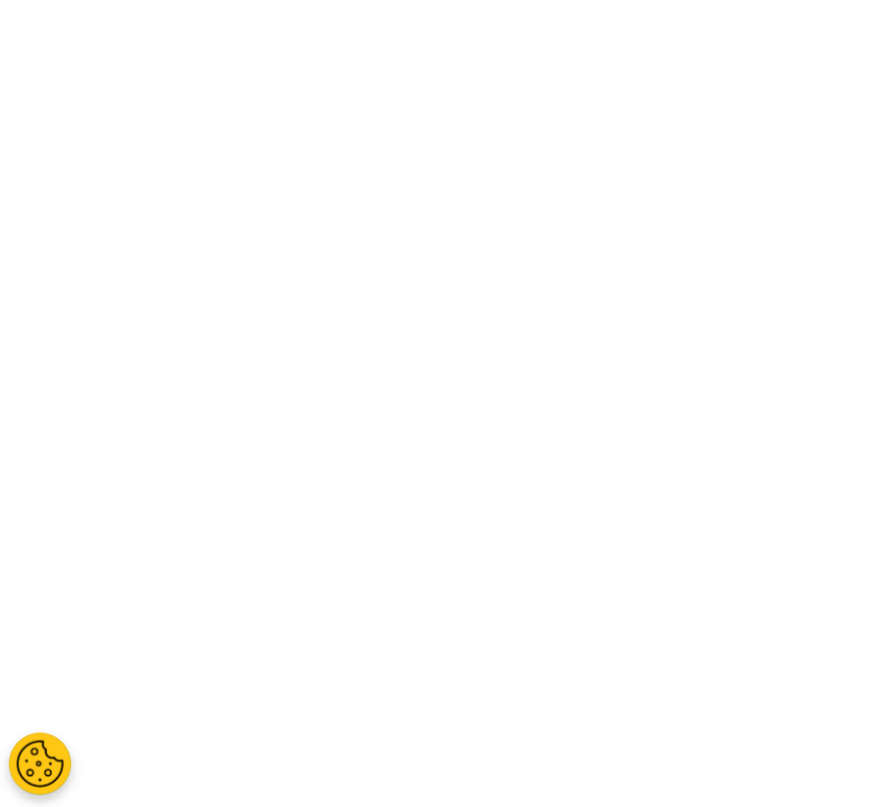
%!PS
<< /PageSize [885 807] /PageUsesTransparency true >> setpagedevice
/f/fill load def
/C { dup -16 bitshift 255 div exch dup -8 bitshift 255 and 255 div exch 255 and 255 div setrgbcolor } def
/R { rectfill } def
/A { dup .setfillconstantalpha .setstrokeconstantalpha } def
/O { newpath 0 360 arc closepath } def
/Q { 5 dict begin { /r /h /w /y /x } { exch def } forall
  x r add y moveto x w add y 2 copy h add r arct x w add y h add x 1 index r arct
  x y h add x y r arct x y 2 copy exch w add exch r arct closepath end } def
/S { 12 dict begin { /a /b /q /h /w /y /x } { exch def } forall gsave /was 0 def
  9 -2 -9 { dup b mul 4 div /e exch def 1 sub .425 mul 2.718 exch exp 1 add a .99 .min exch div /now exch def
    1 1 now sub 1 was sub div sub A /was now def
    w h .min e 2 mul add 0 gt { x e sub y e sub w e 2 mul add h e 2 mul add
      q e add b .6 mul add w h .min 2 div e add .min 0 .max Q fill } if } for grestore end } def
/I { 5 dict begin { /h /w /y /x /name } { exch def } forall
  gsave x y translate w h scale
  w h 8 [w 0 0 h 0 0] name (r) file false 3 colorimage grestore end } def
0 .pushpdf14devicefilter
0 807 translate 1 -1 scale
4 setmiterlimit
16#FFFFFF C
0 0 885 807 R
16#000000 C
9 738 62 62 31 5 .2 S
16#6AAAE4 C
40 764 31 O f
(1.rgb) 8 732 64 64 I
.poppdf14devicefilter showpage
